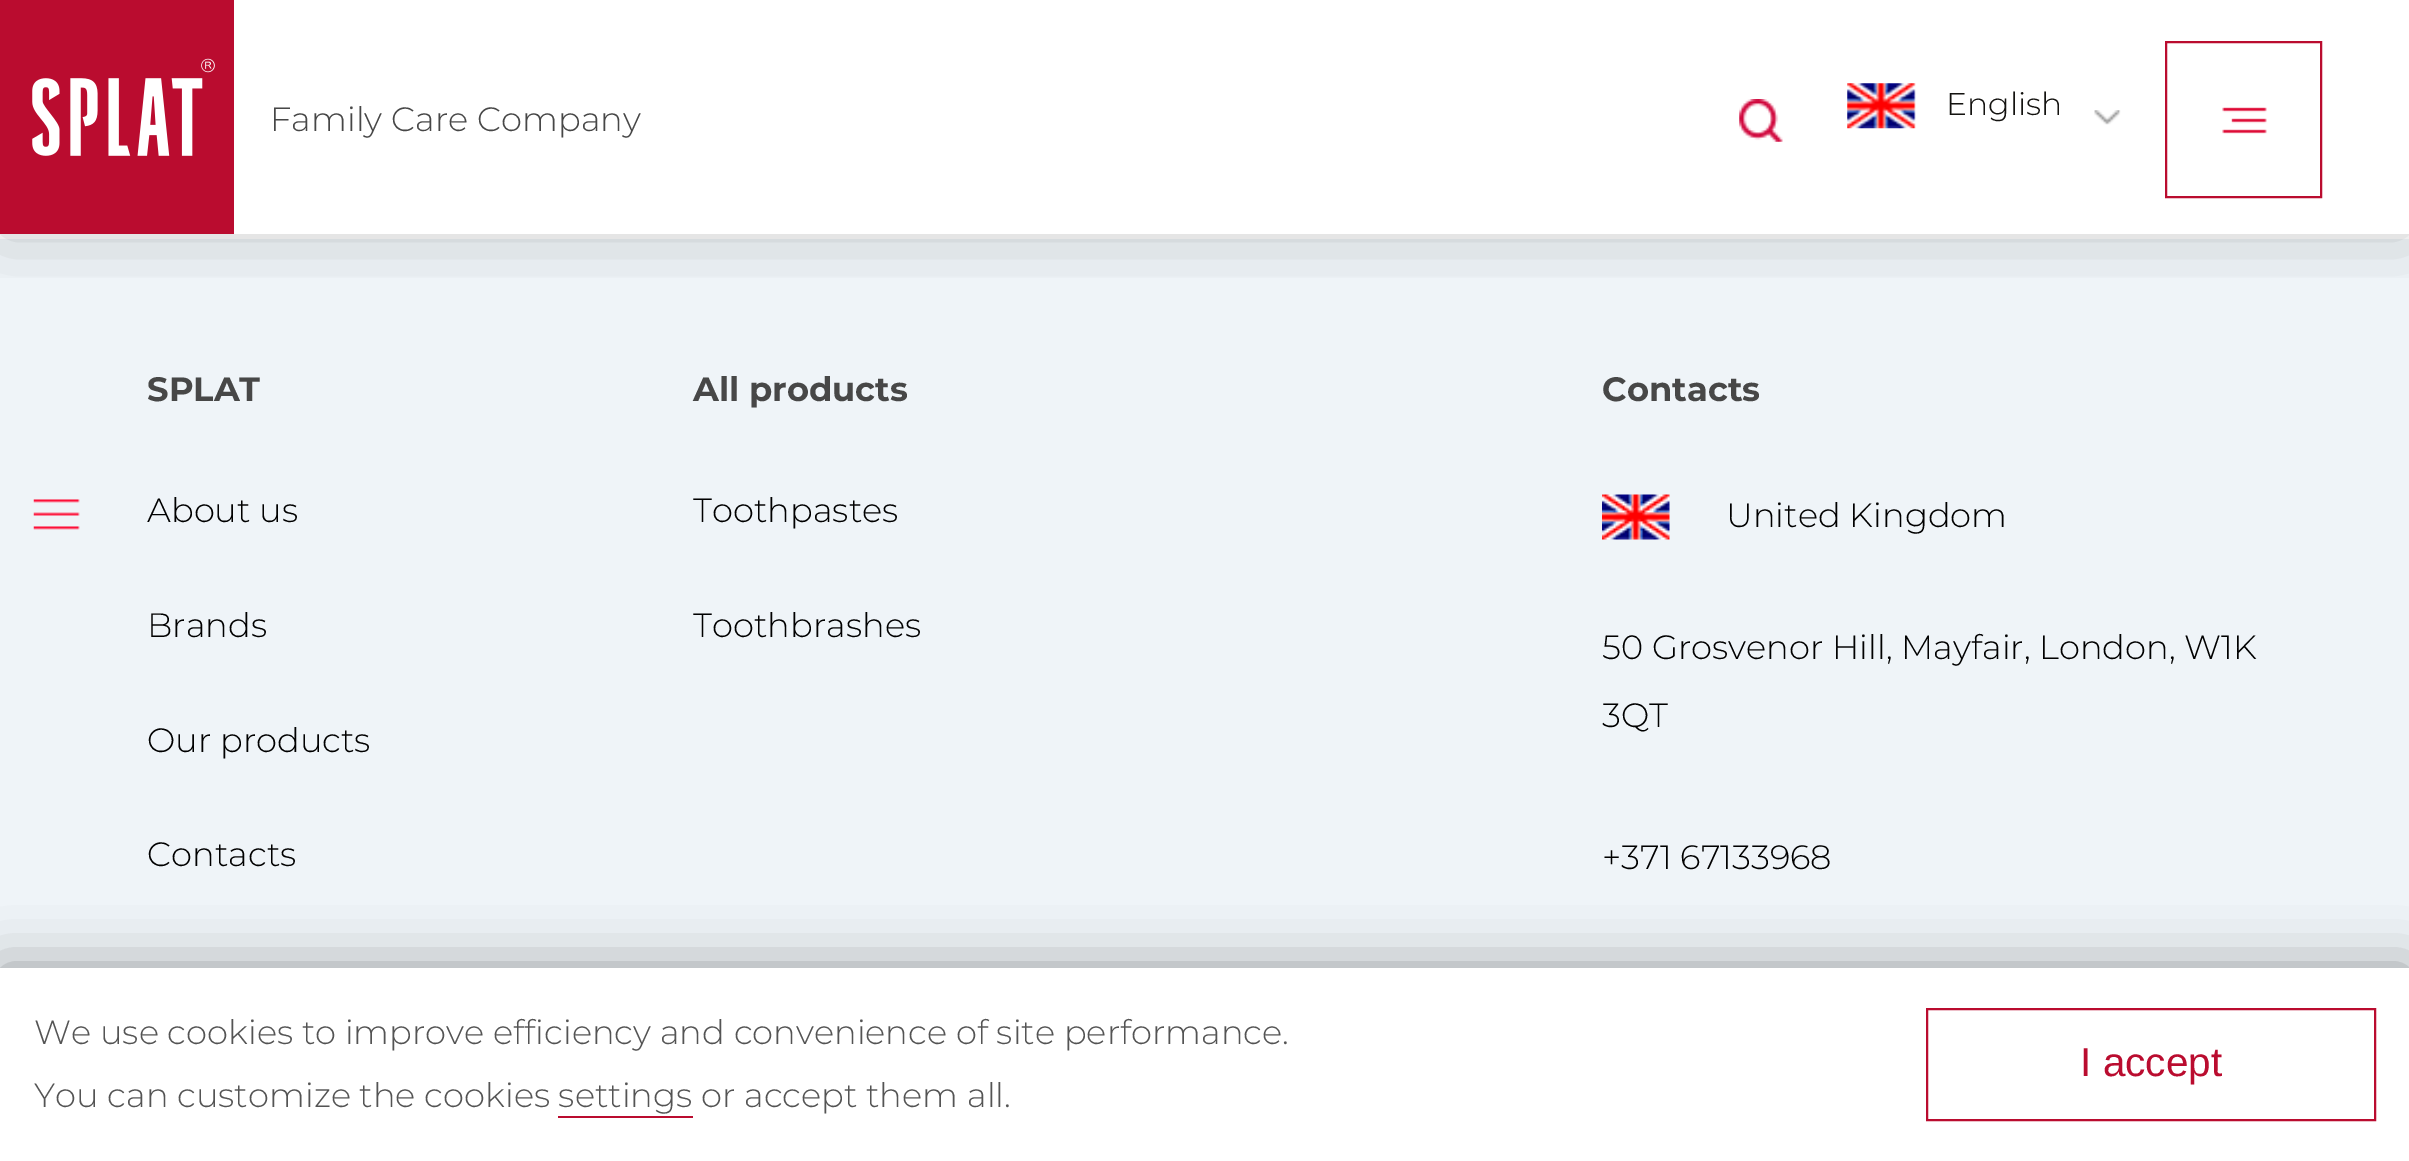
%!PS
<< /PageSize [2409 1161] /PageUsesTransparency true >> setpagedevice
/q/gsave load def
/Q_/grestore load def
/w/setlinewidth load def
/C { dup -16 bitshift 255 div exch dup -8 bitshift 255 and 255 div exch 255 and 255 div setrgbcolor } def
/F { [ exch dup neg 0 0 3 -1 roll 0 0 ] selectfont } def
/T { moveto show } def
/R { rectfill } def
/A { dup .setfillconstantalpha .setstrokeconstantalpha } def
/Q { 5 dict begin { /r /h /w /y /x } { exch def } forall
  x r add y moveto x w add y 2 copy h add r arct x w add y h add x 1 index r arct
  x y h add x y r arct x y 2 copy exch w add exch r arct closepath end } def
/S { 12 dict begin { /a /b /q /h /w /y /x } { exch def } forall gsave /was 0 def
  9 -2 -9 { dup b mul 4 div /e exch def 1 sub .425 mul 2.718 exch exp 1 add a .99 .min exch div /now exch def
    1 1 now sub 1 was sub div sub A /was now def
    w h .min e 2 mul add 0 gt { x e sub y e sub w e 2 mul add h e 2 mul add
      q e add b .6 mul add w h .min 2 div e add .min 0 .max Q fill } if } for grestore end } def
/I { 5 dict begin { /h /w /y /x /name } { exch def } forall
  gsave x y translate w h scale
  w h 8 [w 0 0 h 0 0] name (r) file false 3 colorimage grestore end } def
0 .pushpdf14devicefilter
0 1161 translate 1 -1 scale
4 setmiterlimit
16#FFFFFF C
0 0 2409 1161 R
16#EFF4F8 C
0 239 2409 729 R
q
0 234 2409 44 rectclip
16#000000 C
0 0 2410 234 0 34 .2 S
Q_
(1.rgb) 0 0 234 234 I
/Montserrat-Light 33.75 F
16#474747 C
(Family Care Company) 270 131 T
(2.rgb) 1739 99 44 43 I
(3.rgb) 1847 83 69 46 I
/Montserrat-Light 31.5 F
16#141310 C
(English) 1946 115 T
(4.rgb) 2094 110 27 15 I
(5.rgb) 2222 107 45 27 I
16#BA0C2F C
2 w
2166 42 155 155 rectstroke
(6.rgb) 33 499 47 31 I
/Montserrat-Bold 33.75 F
16#474747 C
(SPLAT) 147 401 T
/Montserrat-Light 33.75 F
16#000000 C
(About us) 147 522 T
(Brands) 147 637 T
(Our products) 147 752 T
(Contacts) 147 866 T
/Montserrat-Bold 33.75 F
16#474747 C
(All products) 693 401 T
/Montserrat-Light 33.75 F
16#000000 C
(Toothpastes) 693 522 T
(Toothbrashes) 693 637 T
/Montserrat-Bold 33.75 F
16#474747 C
(Contacts) 1602 401 T
(7.rgb) 1602 494 68 46 I
/Montserrat-Light 33.75 F
16#000000 C
(United Kingdom) 1726 527 T
(50 Grosvenor Hill, Mayfair, London, W1K) 1602 659 T
(3QT) 1602 727 T
(+371 67133968) 1602 869 T
0 968 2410 193 0 28 .36 S
16#FFFFFF C
0 968 2409 193 R
16#545454 C
(We use cookies to improve efficiency and convenience of site performance.) 34 1044 T
(You can customize the cookies settings or accept them all.) 34 1107 T
16#BA0C2F C
558 1116 135 2 R
1927 1009 448 111 rectstroke
/LiberationSans-Regular 40.5 F
(I accept) 2080 1076 T
.poppdf14devicefilter showpage
